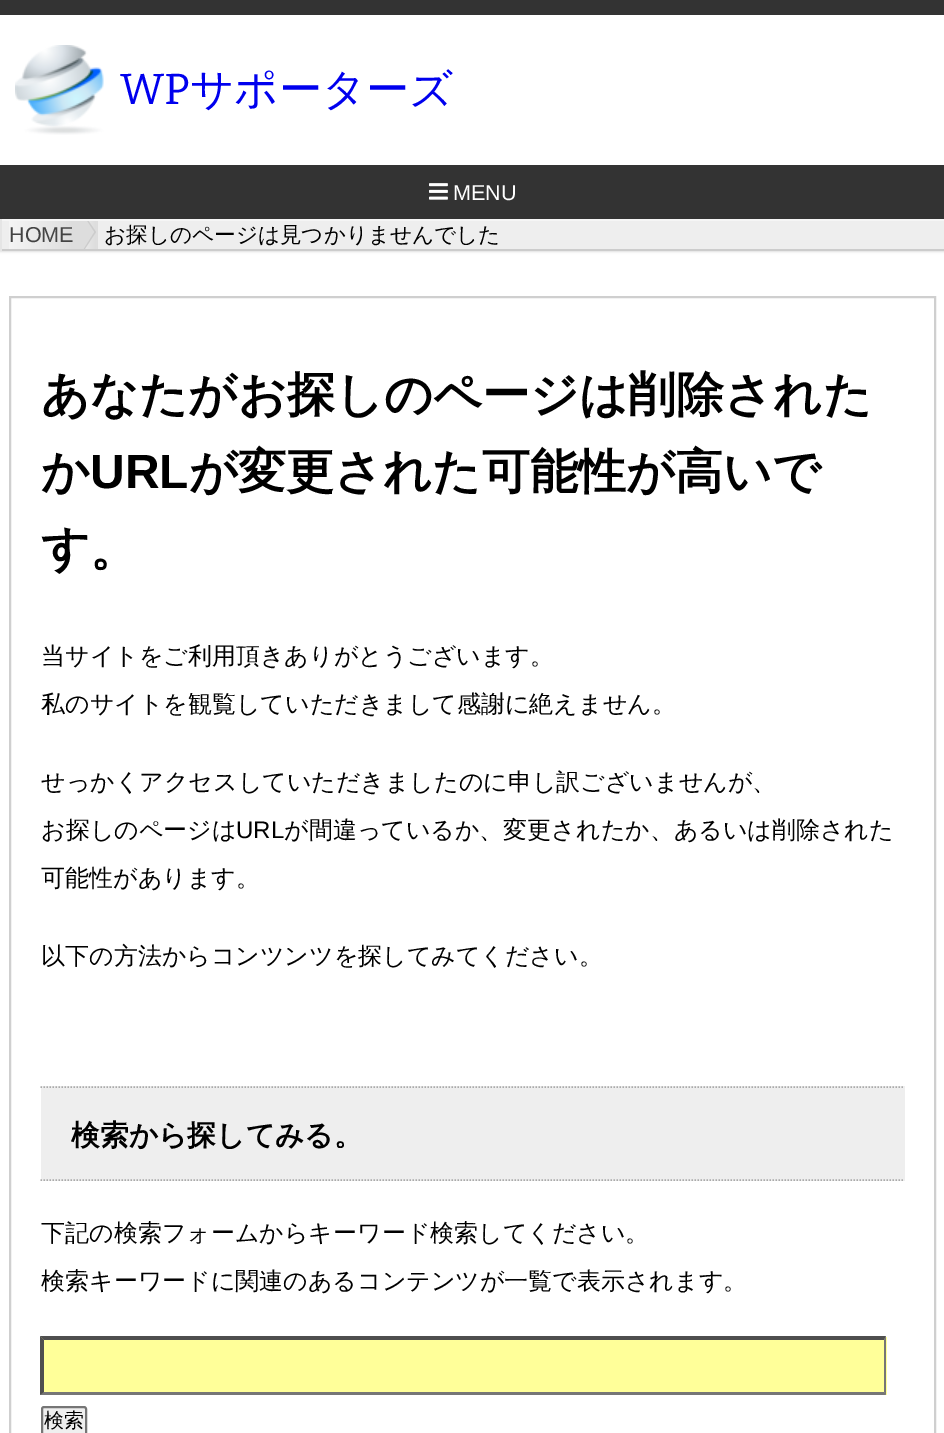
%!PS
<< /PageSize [944 1433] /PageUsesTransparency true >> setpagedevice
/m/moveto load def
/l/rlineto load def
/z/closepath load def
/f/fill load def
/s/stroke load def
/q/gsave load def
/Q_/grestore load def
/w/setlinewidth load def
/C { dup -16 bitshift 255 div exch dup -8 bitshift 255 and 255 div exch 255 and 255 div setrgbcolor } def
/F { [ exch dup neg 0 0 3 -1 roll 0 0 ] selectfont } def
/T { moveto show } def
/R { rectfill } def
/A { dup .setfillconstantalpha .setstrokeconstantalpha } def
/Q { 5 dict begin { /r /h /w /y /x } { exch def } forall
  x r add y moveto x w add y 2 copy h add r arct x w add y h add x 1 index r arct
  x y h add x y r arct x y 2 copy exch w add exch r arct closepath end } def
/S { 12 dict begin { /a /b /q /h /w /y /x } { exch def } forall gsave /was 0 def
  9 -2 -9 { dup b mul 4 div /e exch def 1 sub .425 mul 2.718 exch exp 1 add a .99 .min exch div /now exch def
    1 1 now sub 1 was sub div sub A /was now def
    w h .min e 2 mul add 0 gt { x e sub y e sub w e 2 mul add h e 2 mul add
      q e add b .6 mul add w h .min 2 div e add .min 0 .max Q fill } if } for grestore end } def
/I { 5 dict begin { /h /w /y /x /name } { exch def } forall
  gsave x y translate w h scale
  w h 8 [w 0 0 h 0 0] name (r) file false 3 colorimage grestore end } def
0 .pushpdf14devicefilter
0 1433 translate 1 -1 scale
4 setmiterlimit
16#FFFFFF C
0 0 944 1433 R
16#333333 C
0 0 944 15 R
(1.rgb) 15 45 89 90 I
/Bitter-Regular 43.25 F
16#0000EE C
(WP) 120 104 T
/WenQuanYiZenHei-Medium 43.25 F
(サポーターズ) 190 104 T
16#000000 C
0 219 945 32 0 1.5 .2 S
16#333333 C
0 165 944 54 R
(2.rgb) 429 183 19 17 I
/LiberationSans-Regular 21.6 F
16#FFFFFF C
(MENU) 453 200 T
16#EEEEEE C
2 221 942 28 R
16#F5F5F5 C
0 219 944 2 R
16#CCCCCC C
0 249 944 2 R
16#E5E5E5 C
0 219 2 32 R
q 96 221 m 2 0 l 0 28 l -2 0 l z clip newpath
<< /ShadingType 2 /ColorSpace /DeviceRGB /Coords [68 233 98 233] /Extend [true true] /Function << /FunctionType 2 /Domain [0 1] /C0 [.961 .961 .961] /C1 [.867 .867 .867] /N 1 >> >> shfill Q_
q 9 221 m 65 0 l 0 28 l -65 0 l z clip newpath
<< /ShadingType 2 /ColorSpace /DeviceRGB /Coords [9 234 74 234] /Extend [true true] /Function << /FunctionType 2 /Domain [0 1] /C0 [.961 .961 .961] /C1 [.867 .867 .867] /N 1 >> >> shfill Q_
q 84 221 m 12 0 l 0 28 l -12 0 l z clip newpath
<< /ShadingType 2 /ColorSpace /DeviceRGB /Coords [74 233 96 233] /Extend [true true] /Function << /FunctionType 2 /Domain [0 1] /C0 [.961 .961 .961] /C1 [.867 .867 .867] /N 1 >> >> shfill Q_
q
2 221 498 28 rectclip
16#CCCCCC C
75 264 m 0 -63 l 21 31 l z f
16#DDDDDD C
74 264 m 0 -63 l 20 31 l z f
Q_
16#444444 C
(HOME) 9 242 T
/WenQuanYiZenHei-Medium 21.6 F
16#000000 C
(お探しのページは見つかりませんでした) 104 242 T
16#CFCFCF C
2 w
10 297 925 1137 rectstroke
/WenQuanYiZenHei-Bold 48 F
16#000000 C
(あなたがお探しのページは削除された) 41 411 T
(か) 41 488 T
/LiberationSans-Bold 48 F
(URL) 90 488 T
/WenQuanYiZenHei-Bold 48 F
(が変更された可能性が高いで) 189 488 T
(す。) 41 565 T
/WenQuanYiZenHei-Medium 24 F
(当サイトをご利用頂きありがとうございます。) 41 664 T
(私のサイトを観覧していただきまして感謝に絶えません。) 41 712 T
(せっかくアクセスしていただきましたのに申し訳ございませんが、) 41 790 T
(お探しのページは) 41 838 T
/LiberationSans-Regular 24 F
(URL) 236 838 T
/WenQuanYiZenHei-Medium 24 F
(が間違っているか、変更されたか、あるいは削除された) 284 838 T
(可能性があります。) 41 886 T
(以下の方法からコンツンツを探してみてください。) 41 964 T
16#EEEEEE C
41 1086 864 95 R
16#AAAAAA C
1.5 w
[1.5 1.5] 0 setdash
40.5 1087 m 864 0 l s
40.5 1180 m 864 0 l s
/WenQuanYiZenHei-Bold 28.75 F
16#000000 C
(検索から探してみる。) 71 1145 T
/WenQuanYiZenHei-Medium 24 F
(下記の検索フォームからキーワード検索してください。) 41 1241 T
(検索キーワードに関連のあるコンテンツが一覧で表示されます。) 41 1289 T
16#FFFF99 C
41 1337 846 58 R
16#4F4F4F C
40 1336 m 846 0 l -2 4 l -840 0 l z f
16#767676 C
886 1336 m 0 59 l -2 -3 l 0 -52 l z f
886 1395 m -846 0 l 4 -3 l 840 0 l z f
16#4F4F4F C
40 1395 m 0 -59 l 4 4 l 0 52 l z f
16#EFEFEF C
42 1407 44 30 2 Q q f Q_
16#767676 C
2 w
[] 0 setdash
s
/WenQuanYiZenHei-Medium 20 F
16#000000 C
(検索) 44 1427 T
.poppdf14devicefilter showpage
